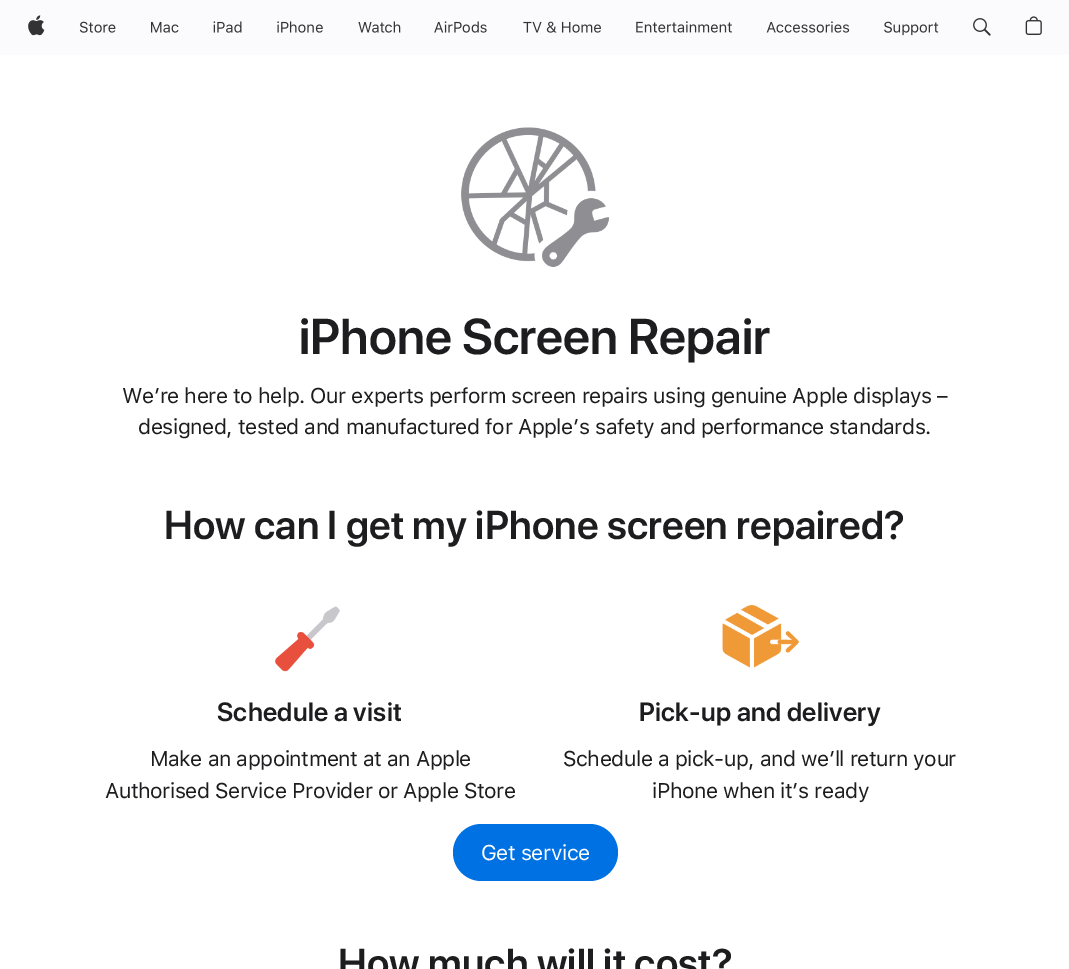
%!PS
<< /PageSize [1069 969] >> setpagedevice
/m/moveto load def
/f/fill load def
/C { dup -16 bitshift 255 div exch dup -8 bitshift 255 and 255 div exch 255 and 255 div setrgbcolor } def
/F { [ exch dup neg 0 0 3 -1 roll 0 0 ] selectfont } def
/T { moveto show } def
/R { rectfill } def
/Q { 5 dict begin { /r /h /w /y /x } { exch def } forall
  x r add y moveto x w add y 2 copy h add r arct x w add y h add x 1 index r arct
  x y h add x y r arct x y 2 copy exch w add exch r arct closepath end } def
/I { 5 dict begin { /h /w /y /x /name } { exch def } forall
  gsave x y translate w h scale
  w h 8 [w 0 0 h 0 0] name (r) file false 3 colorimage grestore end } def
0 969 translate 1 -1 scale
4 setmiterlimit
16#FFFFFF C
0 0 1069 969 R
16#FBFBFD C
0 0 1069 55 R
(1.rgb) 28 15 17 21 I
(2.rgb) 79 21 37 12 I
(3.rgb) 151 21 28 12 I
(4.rgb) 213 21 29 12 I
(5.rgb) 277 21 46 12 I
(6.rgb) 358 21 43 12 I
(7.rgb) 434 21 53 12 I
(8.rgb) 523 21 78 12 I
(9.rgb) 636 21 96 12 I
(10.rgb) 766 21 84 12 I
(11.rgb) 884 21 55 15 I
(12.rgb) 973 18 18 18 I
(13.rgb) 1025 16 17 19 I
(14.rgb) 461 127 148 140 I
/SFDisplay-SemiBold 50 F
16#1D1D1F C
(iPhone Screen Repair) 299 354 T
/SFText-Regular 21.25 F
122 403 m -.47 0 (We’re here to help. Our experts perform screen repairs using genuine Apple displays –) ashow
138 434 m -.47 0 (designed, tested and manufactured for Apple’s safety and performance standards.) ashow
/SFDisplay-SemiBold 40 F
164 539 m .15 0 (How can I get my iPhone screen repaired?) ashow
(15.rgb) 275 606 65 66 I
/SFDisplay-SemiBold 26.25 F
217 721 m .25 0 (Schedule a visit) ashow
/SFText-Regular 21.25 F
150 766 m -.47 0 (Make an appointment at an Apple) ashow
105 798 m -.47 0 (Authorised Service Provider or Apple Store) ashow
(16.rgb) 722 605 77 63 I
/SFDisplay-SemiBold 26.25 F
639 721 m .25 0 (Pick-up and delivery) ashow
/SFText-Regular 21.25 F
563 766 m -.47 0 (Schedule a pick-up, and we’ll return your) ashow
652 798 m -.47 0 (iPhone when it’s ready) ashow
16#0071E3 C
453 824 165 57 28.5 Q f
16#FFFFFF C
481 860 m -.47 0 (Get service) ashow
/SFDisplay-SemiBold 40 F
16#1D1D1F C
338 977 m .15 0 (How much will it cost?) ashow
showpage
